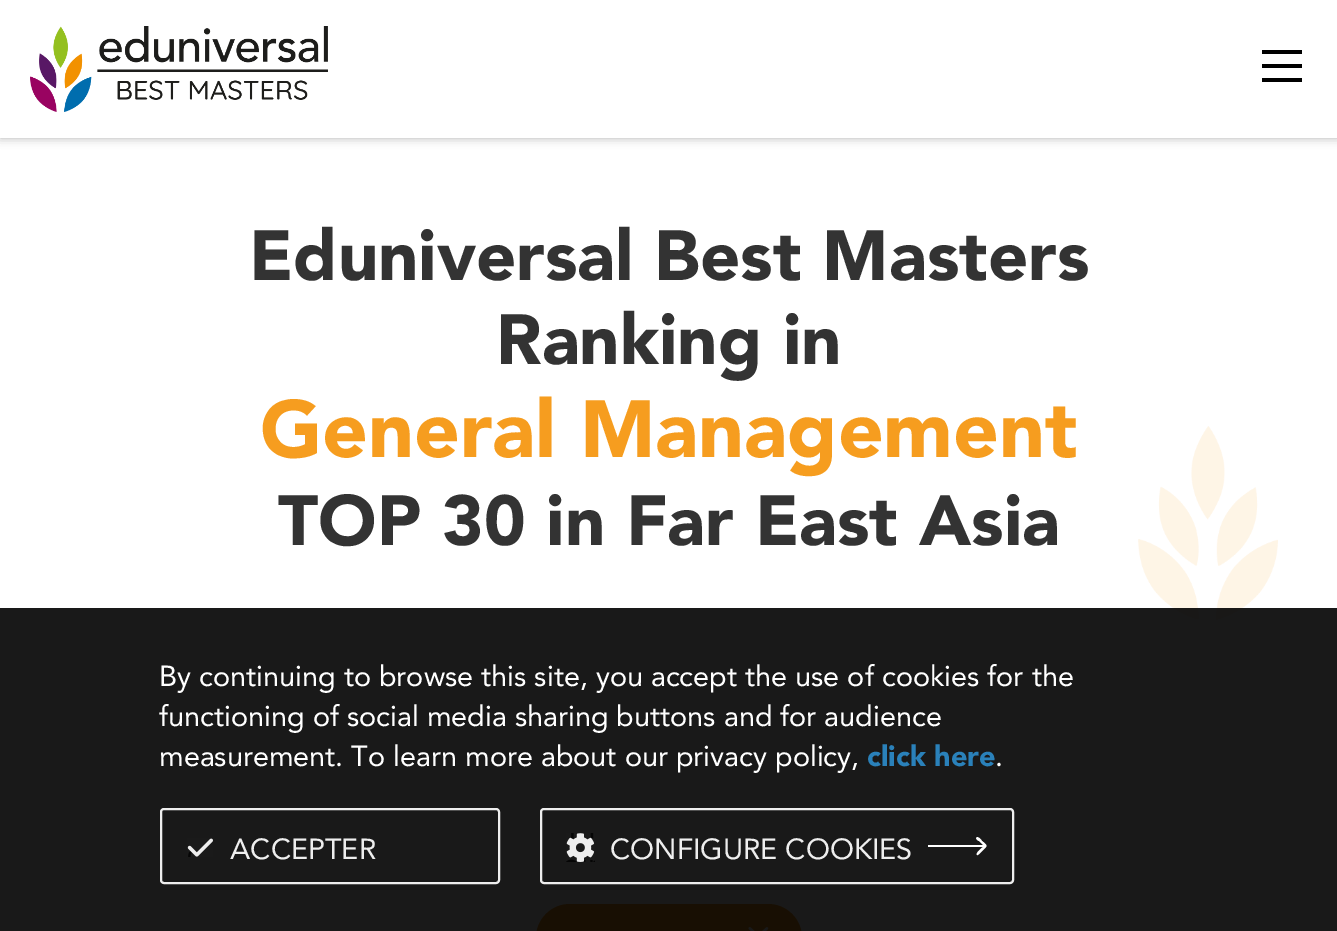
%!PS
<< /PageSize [1337 931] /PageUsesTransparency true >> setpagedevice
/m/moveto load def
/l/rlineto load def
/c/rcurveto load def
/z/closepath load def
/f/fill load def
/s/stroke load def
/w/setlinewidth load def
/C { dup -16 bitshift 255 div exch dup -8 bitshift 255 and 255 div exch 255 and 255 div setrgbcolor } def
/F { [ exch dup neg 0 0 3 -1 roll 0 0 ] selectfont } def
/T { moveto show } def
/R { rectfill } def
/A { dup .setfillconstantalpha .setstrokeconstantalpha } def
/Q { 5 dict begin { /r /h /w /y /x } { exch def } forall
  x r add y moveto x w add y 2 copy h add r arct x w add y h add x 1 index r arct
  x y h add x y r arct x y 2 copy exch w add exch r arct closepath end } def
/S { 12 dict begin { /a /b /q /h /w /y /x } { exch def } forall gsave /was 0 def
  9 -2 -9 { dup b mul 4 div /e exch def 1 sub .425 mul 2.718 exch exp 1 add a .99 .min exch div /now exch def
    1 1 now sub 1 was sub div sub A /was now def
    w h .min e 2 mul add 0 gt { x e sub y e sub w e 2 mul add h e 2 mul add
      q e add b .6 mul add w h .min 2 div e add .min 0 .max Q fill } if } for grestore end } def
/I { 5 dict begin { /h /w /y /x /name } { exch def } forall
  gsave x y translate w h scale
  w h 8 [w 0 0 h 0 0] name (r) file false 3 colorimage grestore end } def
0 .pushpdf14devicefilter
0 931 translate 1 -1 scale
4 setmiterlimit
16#FFFFFF C
0 0 1337 931 R
16#000000 C
0 0 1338 138 0 5 .3 S
16#FFFFFF C
0 0 1337 138 R
(1.rgb) 30 26 298 86 I
16#000000 C
1262 64 40 4 R
1262 50 40 4 R
1262 78 40 4 R
(2.rgb) 1138 426 140 194 I
/Avenir-Black 70.4 F
16#333333 C
(Eduniversal Best Masters) 249 280 T
(Ranking in) 496 364 T
/Avenir-Black 80 F
16#F69D1F C
(General Management) 260 457 T
/Avenir-Black 70.4 F
16#333333 C
(TOP 30 in Far East Asia) 278 545 T
16#F69D1F C
536 904 266 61 34 Q f
(3.rgb) 748 927 21 4 I
0.9 A
16#000000 C
0 608 1337 323 R
/Avenir-Regular 28.8 F
1 A
16#FFFFFF C
(By continuing to browse this site, you accept the use of cookies for the) 159 686 T
(functioning of social media sharing buttons and for audience) 159 726 T
(measurement. To learn more about our privacy policy,) 159 766 T
/Avenir-Black 28.8 F
16#2A81BA C
(click here) 867 766 T
/Avenir-Regular 28.8 F
16#FFFFFF C
(.) 995 766 T
16#EEEEEE C
2 w
161 809 338 74 3 Q s
(4.rgb) 187 838 26 19 I
(ACCEPTER) 230 859 T
541 809 472 74 3 Q s
(5.rgb) 566 833 29 29 I
(CONFIGURE COOKIES) 610 859 T
16#FFFFFF C
986 847 m 2 -2 -3 -5 -4 -6 c 0 0 -4 -6 -6 -3 c 0 1 2 3 3 3 c 5 5 l -1 1 -9 7 -7 9 c 1 1 8 -7 9 -8 c z 928 847 m 58 0 l 0 -2 l -58 0 l z f
.poppdf14devicefilter showpage
